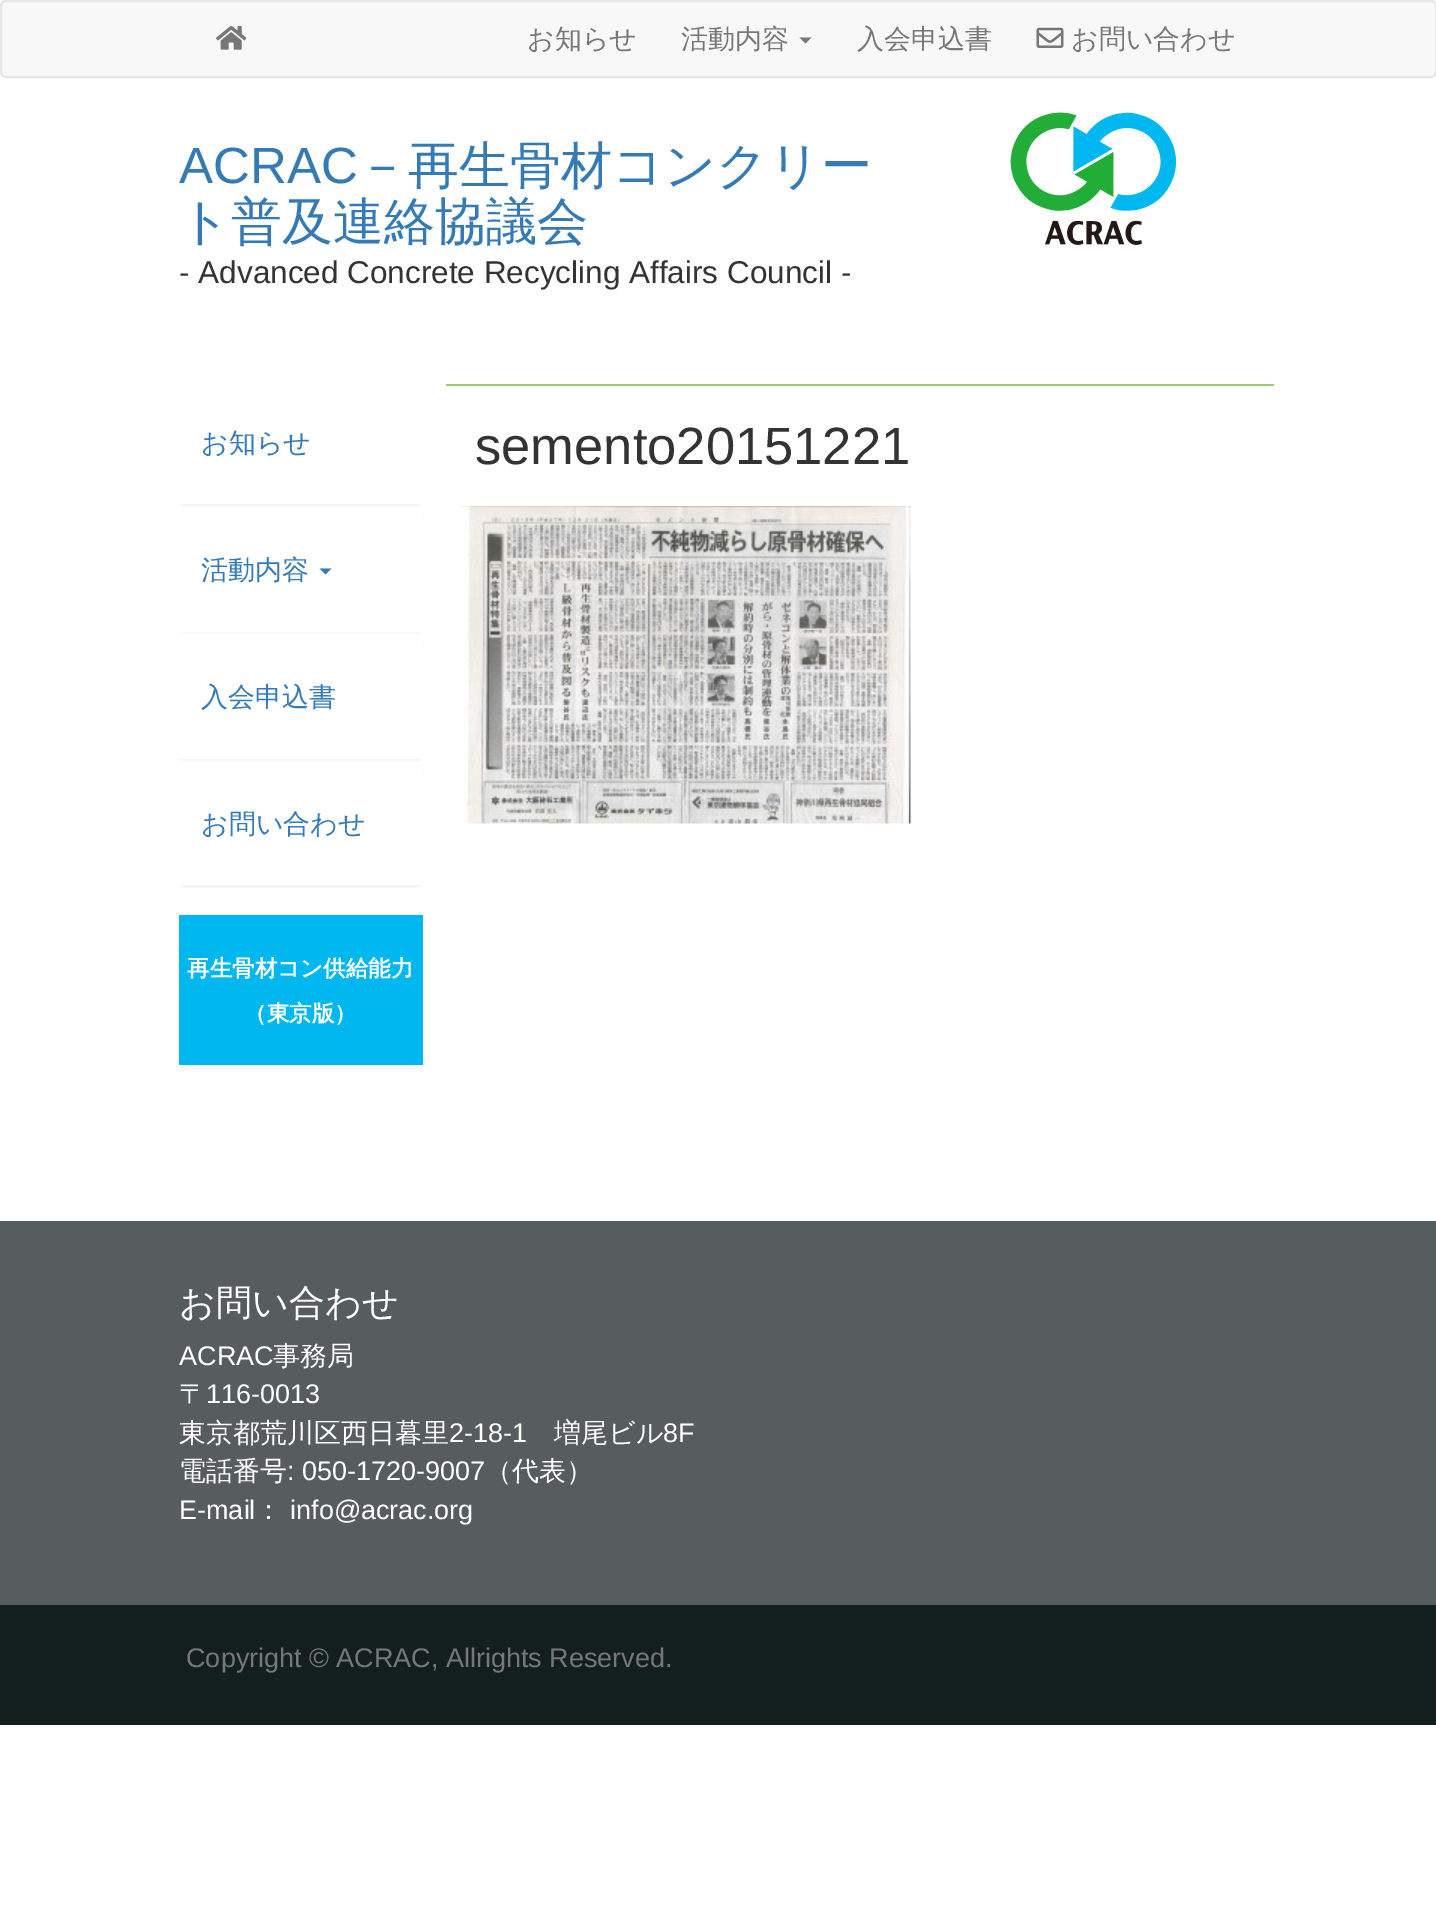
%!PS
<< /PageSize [1436 1925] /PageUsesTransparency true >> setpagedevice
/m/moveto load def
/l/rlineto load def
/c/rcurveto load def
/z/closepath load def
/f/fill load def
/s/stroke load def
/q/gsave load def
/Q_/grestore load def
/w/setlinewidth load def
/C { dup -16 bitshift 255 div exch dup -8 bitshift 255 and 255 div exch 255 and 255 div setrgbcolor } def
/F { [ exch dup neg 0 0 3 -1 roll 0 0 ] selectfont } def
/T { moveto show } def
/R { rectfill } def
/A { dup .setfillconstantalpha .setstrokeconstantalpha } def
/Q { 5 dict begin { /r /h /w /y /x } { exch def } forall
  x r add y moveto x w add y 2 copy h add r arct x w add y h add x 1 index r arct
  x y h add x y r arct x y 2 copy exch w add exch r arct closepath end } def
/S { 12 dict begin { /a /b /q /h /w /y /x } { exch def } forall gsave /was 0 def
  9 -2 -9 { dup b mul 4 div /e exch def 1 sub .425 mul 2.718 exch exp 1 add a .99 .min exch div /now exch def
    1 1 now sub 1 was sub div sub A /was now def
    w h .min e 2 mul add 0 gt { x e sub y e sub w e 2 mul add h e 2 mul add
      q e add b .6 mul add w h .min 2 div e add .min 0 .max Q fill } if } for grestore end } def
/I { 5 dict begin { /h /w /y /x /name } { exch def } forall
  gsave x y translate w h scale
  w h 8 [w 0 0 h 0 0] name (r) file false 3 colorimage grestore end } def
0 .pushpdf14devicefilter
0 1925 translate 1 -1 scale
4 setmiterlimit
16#FFFFFF C
0 0 1436 1925 R
16#F8F8F8 C
1 1 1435 76 5 Q q f Q_
16#E7E7E7 C
2 w
s
(1.rgb) 216 26 31 24 I
/WenQuanYiZenHei-Medium 27 F
16#777777 C
(お知らせ) 527 48 T
(活動内容) 681 48 T
799.5 37.5 m 12 0 l -6 6 l z f
(入会申込書) 857 48 T
(2.rgb) 1036 27 28 21 I
(お問い合わせ) 1071 48 T
/LiberationSans-Regular 51 F
16#337AB7 C
(ACRAC) 179 183 T
/WenQuanYiZenHei-Medium 51 F
(－再生骨材コンクリー) 357 183 T
(ト普及連絡協議会) 179 239 T
/LiberationSans-Regular 31.5 F
16#333333 C
(- Advanced Concrete Recycling Affairs Council -) 179 283 T
(3.rgb) 1010 112 167 133 I
16#000000 C
179 386 244 120 6 1 .05 S
16#FFFFFF C
184 384 m 234 0 l 3 0 5 2 5 5 c 0 115 l -244 0 l 0 -115 l 0 -3 2 -5 5 -5 c z f
/WenQuanYiZenHei-Medium 27 F
16#337AB7 C
(お知らせ) 201 452 T
16#000000 C
179 513 244 120 6 1 .05 S
16#FFFFFF C
184 512 m 234 0 l 3 0 5 2 5 5 c 0 115 l -244 0 l 0 -115 l 0 -3 2 -5 5 -5 c z f
16#337AB7 C
(活動内容) 201 579 T
319.5 568.5 m 12 0 l -6 6 l z f
16#000000 C
179 641 244 120 6 1 .05 S
16#FFFFFF C
184 639 m 234 0 l 3 0 5 2 5 5 c 0 115 l -244 0 l 0 -115 l 0 -3 2 -5 5 -5 c z f
16#337AB7 C
(入会申込書) 201 706 T
16#000000 C
179 768 244 119 6 1 .05 S
16#FFFFFF C
184 767 m 234 0 l 3 0 5 2 5 5 c 0 113 l -244 0 l 0 -113 l 0 -3 2 -5 5 -5 c z f
16#337AB7 C
(お問い合わせ) 201 833 T
16#01B7EF C
179 915 244 150 R
/WenQuanYiZenHei-Bold 22.5 F
16#FFFFFF C
(再生骨材コン供給能力) 187 976 T
(（東京版）) 244 1021 T
16#9ACA74 C
446 384 828 2 R
/LiberationSans-Regular 52.5 F
16#333333 C
(semento20151221) 475 464 T
(4.rgb) 460 506 451 318 I
16#575D5E C
0 1221 1436 384 R
/WenQuanYiZenHei-Medium 36 F
16#FFFFFF C
(お問い合わせ) 179 1315 T
/LiberationSans-Regular 27 F
(ACRAC) 179 1365 T
/WenQuanYiZenHei-Medium 27 F
(事務局) 273 1365 T
(〒) 179 1403 T
/LiberationSans-Regular 27 F
(116-0013) 206 1403 T
/WenQuanYiZenHei-Medium 27 F
(東京都荒川区西日暮里) 179 1442 T
/LiberationSans-Regular 27 F
(2-18-1) 449 1442 T
/WenQuanYiZenHei-Medium 27 F
(増尾ビル) 554 1442 T
/LiberationSans-Regular 27 F
(8F) 663 1442 T
/WenQuanYiZenHei-Medium 27 F
(電話番号) 179 1480 T
/LiberationSans-Regular 27 F
(: 050-1720-9007) 287 1480 T
/WenQuanYiZenHei-Medium 27 F
(（代表）) 485 1480 T
/LiberationSans-Regular 27 F
(E-mail) 179 1519 T
/WenQuanYiZenHei-Medium 27 F
(：) 255 1519 T
/LiberationSans-Regular 27 F
(info@acrac.org) 290 1519 T
16#131F1D C
0 1605 1436 120 R
16#777777 C
(Copyright © ACRAC, Allrights Reserved.) 186 1667 T
.poppdf14devicefilter showpage
